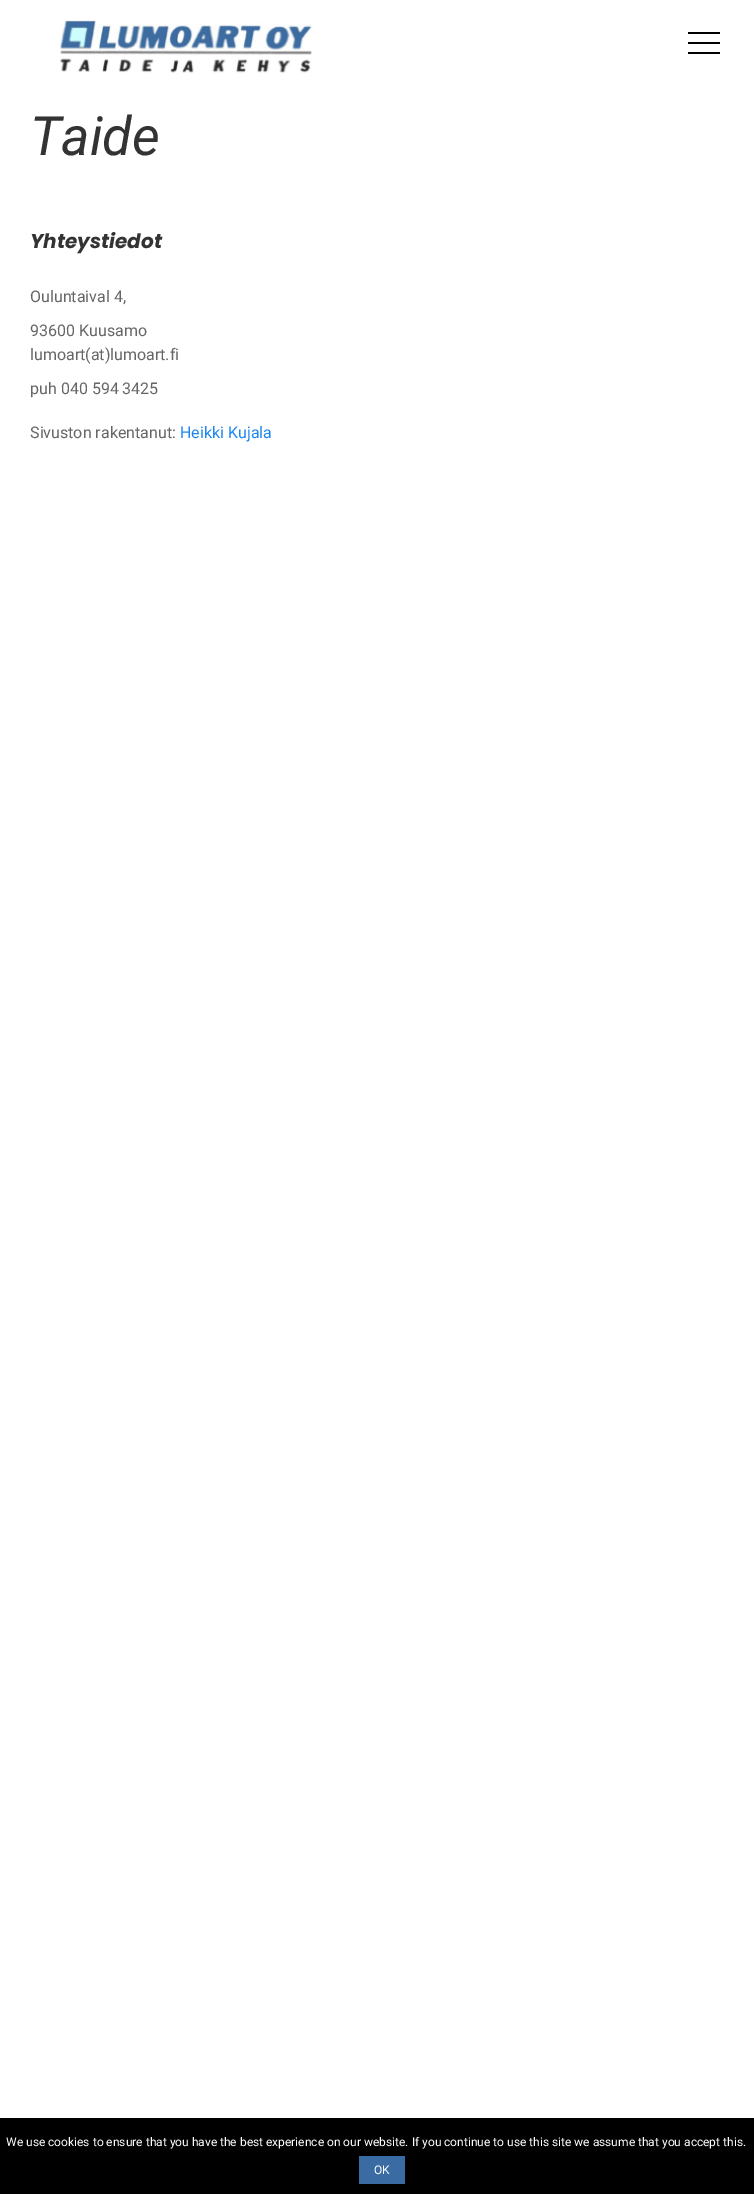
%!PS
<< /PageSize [754 2194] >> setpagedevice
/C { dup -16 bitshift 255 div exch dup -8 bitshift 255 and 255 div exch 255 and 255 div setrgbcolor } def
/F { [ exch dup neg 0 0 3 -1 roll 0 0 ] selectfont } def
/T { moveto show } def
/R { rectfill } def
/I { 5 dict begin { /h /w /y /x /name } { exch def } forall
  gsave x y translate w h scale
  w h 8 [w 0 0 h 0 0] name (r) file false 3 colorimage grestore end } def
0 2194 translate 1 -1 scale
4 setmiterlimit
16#FFFFFF C
0 0 754 2194 R
(1.rgb) 60 20 254 53 I
16#000000 C
688 32 32 2 R
688 42 32 2 R
688 52 32 2 R
/Roboto-Italic 54 F
16#333333 C
(Taide) 30 155 T
/Poppins-BoldItalic 20 F
(Yhteystiedot) 30 248 T
/Roboto-Regular 16 F
16#666666 C
(Ouluntaival 4,) 30 302 T
(93600 Kuusamo) 30 336 T
(lumoart\(at\)lumoart.fi) 30 360 T
(puh 040 594 3425) 30 394 T
(Sivuston rakentanut:) 30 438 T
16#1E87F0 C
(Heikki Kujala) 180 438 T
16#000000 C
0 2118 754 76 R
/Roboto-Regular 12 F
16#FFFFFF C
(We use cookies to ensure that you have the best experience on our website. If you continue to use this site we assume that you accept this.) 6 2146 T
16#3A6BA3 C
359 2156 46 28 R
16#FFFFFF C
(OK) 374 2174 T
showpage
